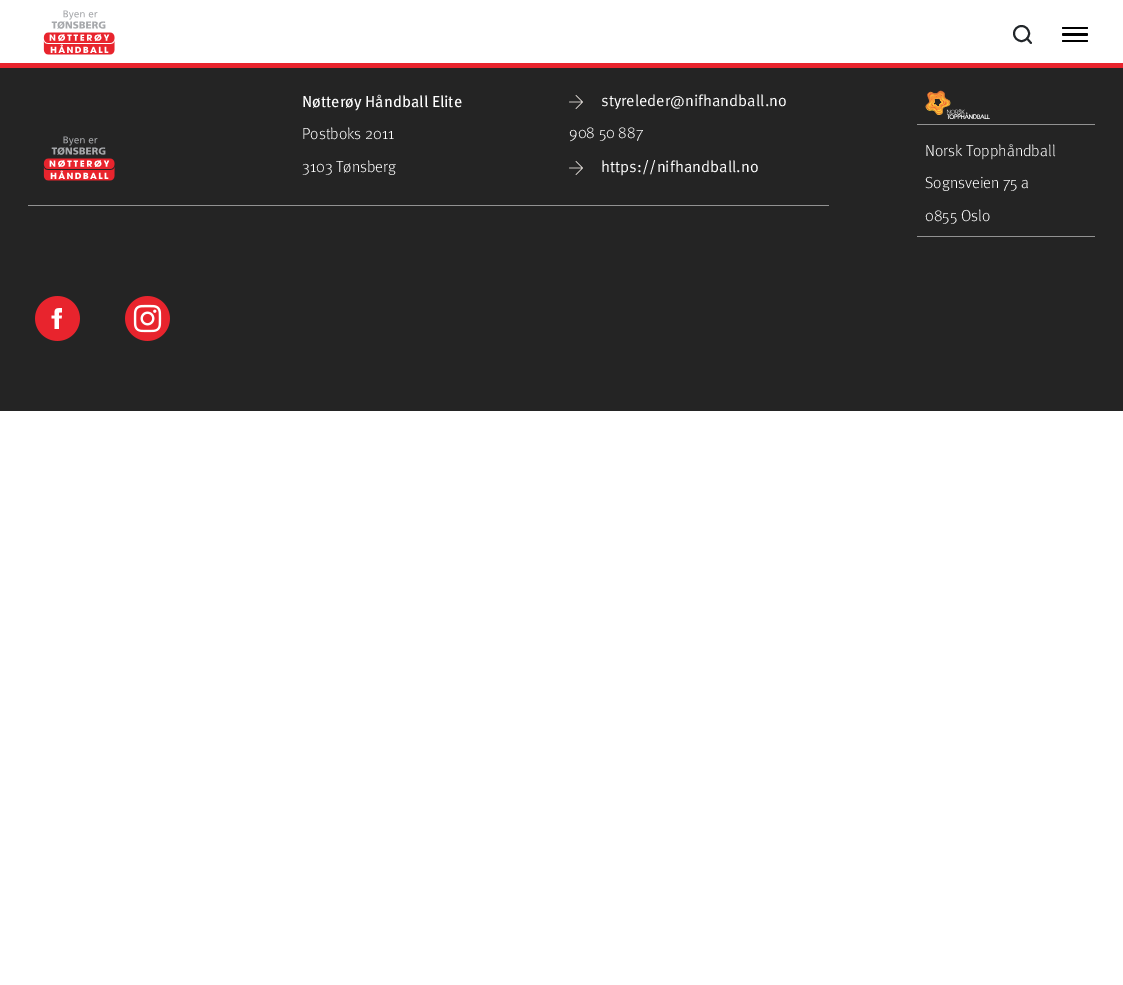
%!PS
<< /PageSize [1123 985] >> setpagedevice
/m/moveto load def
/l/rlineto load def
/f/fill load def
/s/stroke load def
/w/setlinewidth load def
/C { dup -16 bitshift 255 div exch dup -8 bitshift 255 and 255 div exch 255 and 255 div setrgbcolor } def
/F { [ exch dup neg 0 0 3 -1 roll 0 0 ] selectfont } def
/T { moveto show } def
/R { rectfill } def
/O { newpath 0 360 arc closepath } def
/Q { 5 dict begin { /r /h /w /y /x } { exch def } forall
  x r add y moveto x w add y 2 copy h add r arct x w add y h add x 1 index r arct
  x y h add x y r arct x y 2 copy exch w add exch r arct closepath end } def
/I { 5 dict begin { /h /w /y /x /name } { exch def } forall
  gsave x y translate w h scale
  w h 8 [w 0 0 h 0 0] name (r) file false 3 colorimage grestore end } def
0 985 translate 1 -1 scale
4 setmiterlimit
16#FFFFFF C
0 0 1123 985 R
(1.rgb) 43 10 72 45 I
16#212529 C
1.9 w
1021.5 33.5 7.5 O s
1 setlinecap
1 setlinejoin
1031 43 m -4 -4.5 l s
16#000000 C
1062 27 26 2 1 Q f
1062 33 26 3 1.5 Q f
1062 40 26 2 1 Q f
16#E8242D C
0 63 1123 5 R
16#242424 C
0 68 1123 343 R
16#929292 C
28 205 801 1 R
(2.rgb) 43 136 72 45 I
/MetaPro-Regular 16 F
16#FFFFFF C
(Nøtterøy Håndball Elite) 302 107 T
/MetaPro-Light 16 F
(Postboks 2011) 302 139 T
(3103 Tønsberg) 302 172 T
(3.rgb) 569 95 14 14 I
/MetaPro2-Regular 16 F
(styreleder@nifhandball.no) 601 106 T
/MetaPro-Light 16 F
(908 50 887) 569 138 T
(3.rgb) 569 161 14 14 I
/MetaPro2-Regular 16 F
(https://nifhandball.no) 601 172 T
16#929292 C
917 124 178 1 R
(4.rgb) 925 90 65 29 I
917 236 178 1 R
/MetaPro-Light 16 F
16#FFFFFF C
(Norsk Topphåndball) 925 156 T
(Sognsveien 75 a) 925 188 T
(0855 Oslo) 925 221 T
(5.rgb) 35 296 45 45 I
(6.rgb) 125 296 45 45 I
showpage
